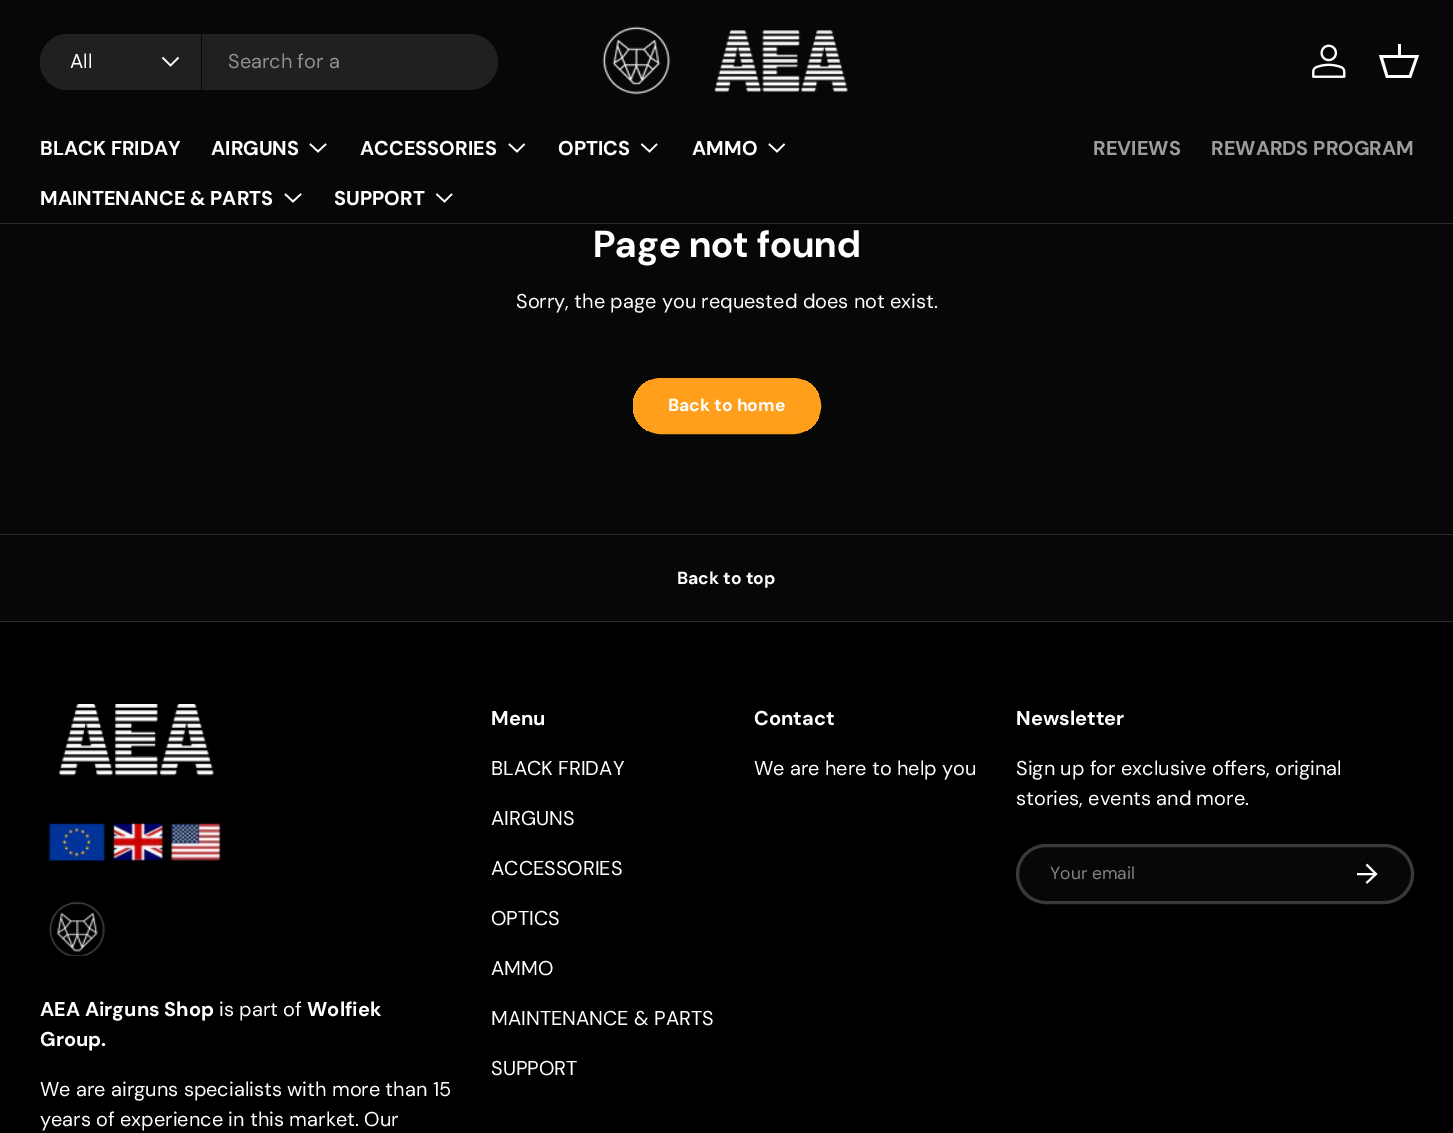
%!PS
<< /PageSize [1453 1133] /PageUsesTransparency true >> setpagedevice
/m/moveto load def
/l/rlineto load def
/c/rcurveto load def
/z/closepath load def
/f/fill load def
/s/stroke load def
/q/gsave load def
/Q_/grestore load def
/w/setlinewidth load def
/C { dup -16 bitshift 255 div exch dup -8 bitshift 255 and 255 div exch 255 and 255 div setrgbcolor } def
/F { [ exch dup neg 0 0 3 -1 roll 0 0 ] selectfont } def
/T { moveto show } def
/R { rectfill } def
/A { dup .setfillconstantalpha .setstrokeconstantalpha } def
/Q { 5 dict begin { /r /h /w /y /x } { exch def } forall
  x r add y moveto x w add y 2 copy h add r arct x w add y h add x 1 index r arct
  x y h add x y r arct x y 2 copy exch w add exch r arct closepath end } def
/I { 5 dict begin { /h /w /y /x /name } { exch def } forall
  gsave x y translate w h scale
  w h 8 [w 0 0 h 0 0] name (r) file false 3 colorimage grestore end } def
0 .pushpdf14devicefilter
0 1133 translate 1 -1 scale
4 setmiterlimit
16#070707 C
0 0 1453 1133 R
16#2C2C2C C
0 223 1453 1 R
16#202020 C
40 34 458 56 28 Q f
68 34 m 135 0 l 0 56 l -135 0 l -15.5 0 -28 -12.5 -28 -28 c 0 -15.5 12.5 -28 28 -28 c z f
16#070707 C
201 34 1 56 R
/DMSans-Regular 20 F
16#FFFFFF C
(All) 70 68 T
1.6 w
178.5 57.5 m -8 8 l -8 -8 l s
16#909090 C
(Search for a) 228 68 T
(1.rgb) 602 26 246 69 I
(2.rgb) 1312 44 34 34 I
16#FFFFFF C
1398 55 m 0 -11 l 3 0 l 0 11 l 18 0 l -8 23 l -25 0 l -7 -23 l z 1383 58 m 5 17 l 21 0 l 6 -17 l z f
/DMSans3-Bold 20 F
(BLACK FRIDAY) 40 155 T
(AIRGUNS) 211 155 T
326 144 m -8 7.5 l -8 -7.5 l s
(ACCESSORIES) 360 155 T
524.5 144 m -7.5 7.5 l -8 -7.5 l s
(OPTICS) 558 155 T
657 144 m -7.5 7.5 l -8 -7.5 l s
(AMMO) 692 155 T
784.5 144 m -7.5 7.5 l -8 -7.5 l s
(MAINTENANCE & PARTS) 40 205 T
301 194 m -8 7.5 l -8 -7.5 l s
(SUPPORT) 334 205 T
452 194 m -7.5 7.5 l -8 -7.5 l s
16#9C9C9C C
(REVIEWS) 1093 155 T
(REWARDS PROGRAM) 1211 155 T
/DMSans-Bold 37.5 F
16#FFFFFF C
(Page not found) 593 257 T
/DMSans-Regular 20 F
(Sorry, the page you requested does not exist.) 516 308 T
q
633 378 188 56 28 Q clip newpath
q 633 380 m 186 0 l 0 51 l -186 0 l z clip newpath
<< /ShadingType 2 /ColorSpace /DeviceRGB /Coords [278 339 809 472] /Extend [true true] /Function << /FunctionType 3 /Domain [0 1] /Functions [<< /FunctionType 2 /Domain [0 1] /C0 [1 .706 .302] /C1 [1 .706 .302] /N 1 >> << /FunctionType 2 /Domain [0 1] /C0 [1 .624 .11] /C1 [1 .624 .11] /N 1 >>] /Bounds [.6] /Encode [0 1 0 1] >> >> shfill Q_
Q_
16#FF9F1C C
3 w
634.5 379.5 185 53 26.5 Q s
/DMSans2-Bold 17.5 F
16#FFFFFF C
(Back to home) 668 411 T
16#2C2C2C C
0 534 1453 1 R
0 621 1453 1 R
16#FFFFFF C
(Back to top) 677 584 T
16#000000 C
0 623 1453 510 R
(3.rgb) 48 704 173 252 I
/DMSans3-Bold 20 F
16#FFFFFF C
(AEA Airguns Shop) 40 1016 T
/DMSans-Regular 20 F
(is part of) 219 1016 T
/DMSans3-Bold 20 F
(Wolfiek) 307 1016 T
(Group.) 40 1046 T
/DMSans-Regular 20 F
(We are airguns specialists with more than 15) 40 1096 T
(years of experience in this market. Our) 40 1126 T
/DMSans3-Bold 20 F
(Menu) 491 725 T
/DMSans-Regular 20 F
(BLACK FRIDAY) 491 775 T
(AIRGUNS) 491 825 T
(ACCESSORIES) 491 875 T
(OPTICS) 491 925 T
(AMMO) 491 975 T
(MAINTENANCE & PARTS) 491 1025 T
(SUPPORT) 491 1075 T
/DMSans3-Bold 20 F
(Contact) 754 725 T
/DMSans-Regular 20 F
(We are here to help you) 754 775 T
/DMSans3-Bold 20 F
(Newsletter) 1016 725 T
/DMSans-Regular 20 F
(Sign up for exclusive offers, original) 1016 775 T
(stories, events and more.) 1016 805 T
16#070707 C
1016 844 398 60 30 Q f
0.2 A
16#FFFFFF C
1017.5 845.5 395 57 28.5 Q s
/DMSans-Regular 17.5 F
1 A
16#838383 C
(Your email) 1050 879 T
16#FFFFFF C
1.9 w
1357 874 m 18.5 0 l 1366.5 864.5 m 9.5 9.5 l -9.5 9 l s
.poppdf14devicefilter showpage
